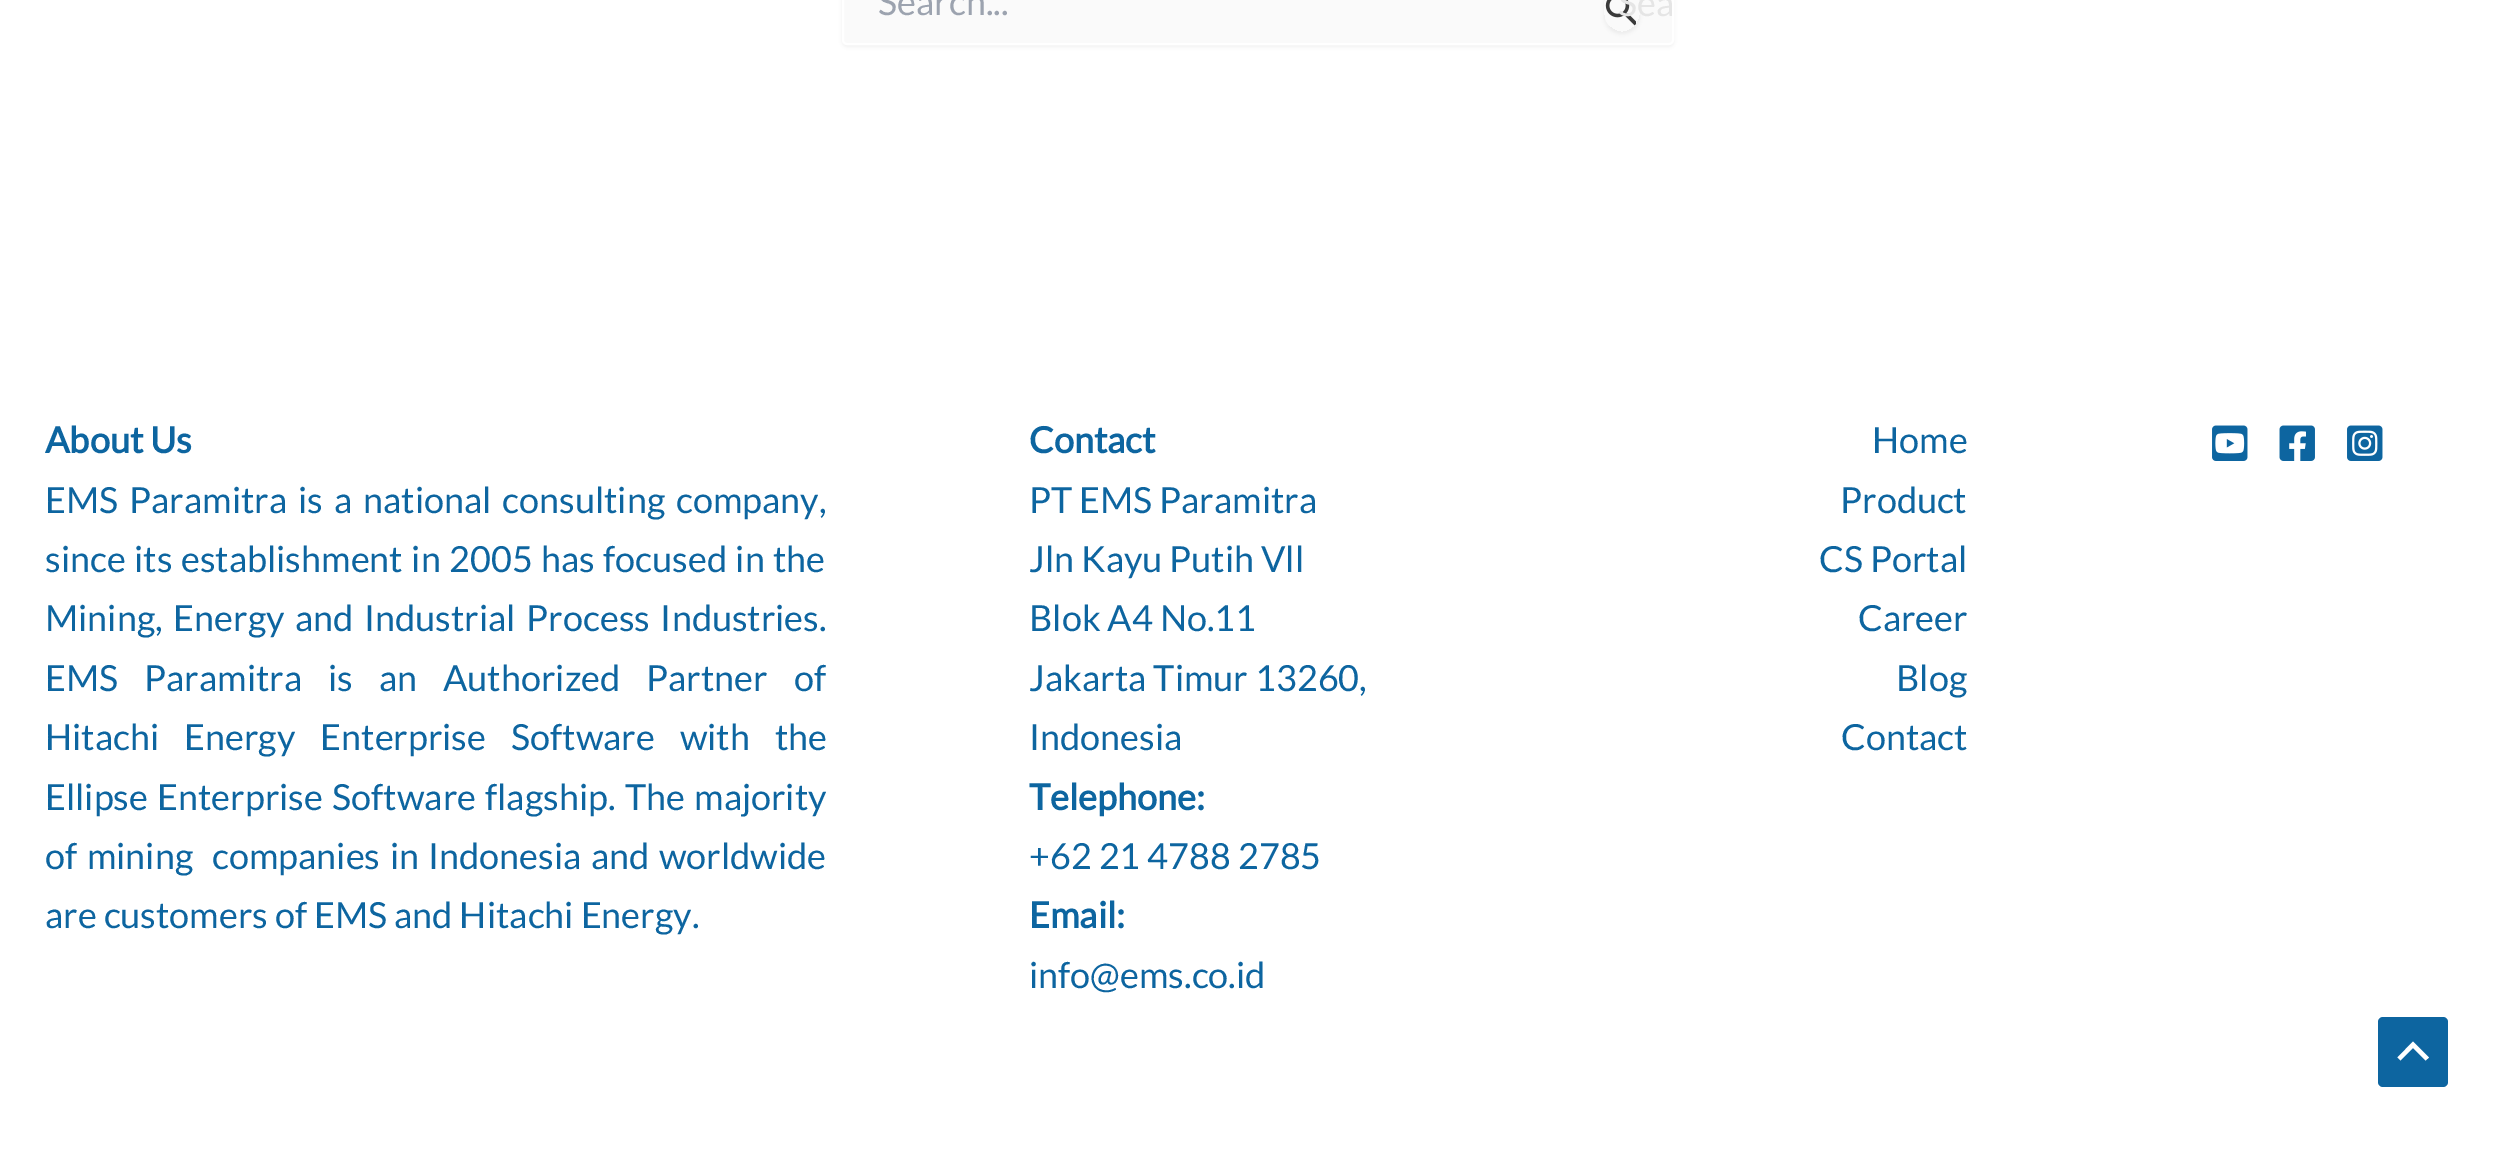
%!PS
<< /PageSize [2514 1153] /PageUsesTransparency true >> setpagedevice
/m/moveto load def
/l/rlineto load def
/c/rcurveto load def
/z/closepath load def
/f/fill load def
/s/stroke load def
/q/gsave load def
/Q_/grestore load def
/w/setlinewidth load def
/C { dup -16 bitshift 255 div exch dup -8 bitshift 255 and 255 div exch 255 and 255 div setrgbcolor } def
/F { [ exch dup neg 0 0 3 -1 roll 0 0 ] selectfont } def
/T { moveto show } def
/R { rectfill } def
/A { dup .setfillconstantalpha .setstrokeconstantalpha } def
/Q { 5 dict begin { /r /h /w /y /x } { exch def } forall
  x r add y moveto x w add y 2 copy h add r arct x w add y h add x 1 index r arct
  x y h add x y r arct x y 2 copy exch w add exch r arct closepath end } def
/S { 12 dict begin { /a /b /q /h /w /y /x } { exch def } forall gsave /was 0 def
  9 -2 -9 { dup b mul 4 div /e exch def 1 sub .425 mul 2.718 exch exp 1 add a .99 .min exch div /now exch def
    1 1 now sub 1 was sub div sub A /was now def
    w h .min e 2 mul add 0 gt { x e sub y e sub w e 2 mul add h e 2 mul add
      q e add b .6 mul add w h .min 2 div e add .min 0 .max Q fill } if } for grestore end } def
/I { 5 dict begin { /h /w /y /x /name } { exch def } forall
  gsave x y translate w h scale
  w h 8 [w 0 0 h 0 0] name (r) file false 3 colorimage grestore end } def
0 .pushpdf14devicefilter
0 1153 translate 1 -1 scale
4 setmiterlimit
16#FFFFFF C
0 0 2514 1153 R
16#000000 C
842 -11 832 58 5 2 .05 S
16#FAFAFA C
843 -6 830 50 4 Q q f Q_
16#FFFFFF C
2 w
s
/Lato-Regular 36 F
16#9CA3AF C
(Search...) 878 15 T
q
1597 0 m 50 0 l 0 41 l -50 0 l z 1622 -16 m 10 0 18 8 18 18 c 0 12 l 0 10 -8 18 -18 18 c -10 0 -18 -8 -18 -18 c 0 -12 l 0 -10 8 -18 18 -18 c z eoclip newpath
16#000000 C
1604 -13 36 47 18 2 .05 S
Q_
(1.rgb) 1605 0 31 26 I
16#E5E5E5 C
(Sea) 1618 16 T
/Lato-Bold 36 F
16#0D65A0 C
(About Us) 45 453 T
/Lato-Regular 36 F
45 513 m 4 0 32 (EMS Paramitra is a national consulting company,) widthshow
45 572 m 1.5 0 32 (since its establishment in 2005 has focused in the) widthshow
45 631 m 3.75 0 32 (Mining, Energy and Industrial Process Industries.) widthshow
45 691 m 19 0 32 (EMS Paramitra is an Authorized Partner of) widthshow
45 750 m 18 0 32 (Hitachi Energy Enterprise Software with the) widthshow
45 810 m 2.25 0 32 (Ellipse Enterprise Software flagship. The majority) widthshow
45 869 m 2.5 0 32 (of mining  companies in Indonesia and worldwide) widthshow
(are customers of EMS and Hitachi Energy.) 45 928 T
/Lato-Bold 36 F
(Contact) 1029 453 T
/Lato-Regular 36 F
(PT EMS Paramitra) 1029 513 T
(Jln Kayu Putih Vll) 1029 572 T
(Blok A4 No.11) 1029 631 T
(Jakarta Timur 13260,) 1029 691 T
(Indonesia) 1029 750 T
/Lato-Bold 36 F
(Telephone:) 1029 810 T
/Lato-Regular 36 F
(+62 21 4788 2785) 1029 869 T
/Lato-Bold 36 F
(Email:) 1029 928 T
/Lato-Regular 36 F
(info@ems.co.id) 1029 988 T
(Home) 1872 453 T
(Product) 1840 513 T
(CS Portal) 1819 572 T
(Career) 1858 631 T
(Blog) 1896 691 T
(Contact) 1841 750 T
(2.rgb) 2212 425 36 36 I
(3.rgb) 2279 425 36 36 I
(4.rgb) 2347 425 36 36 I
2378 1017 70 70 5 Q f
16#FFFFFF C
2429 1057.5 m -16 -16 l -15.5 16 l 3 3 l 12.5 -12.5 l 12.5 12.5 l z f
.poppdf14devicefilter showpage
